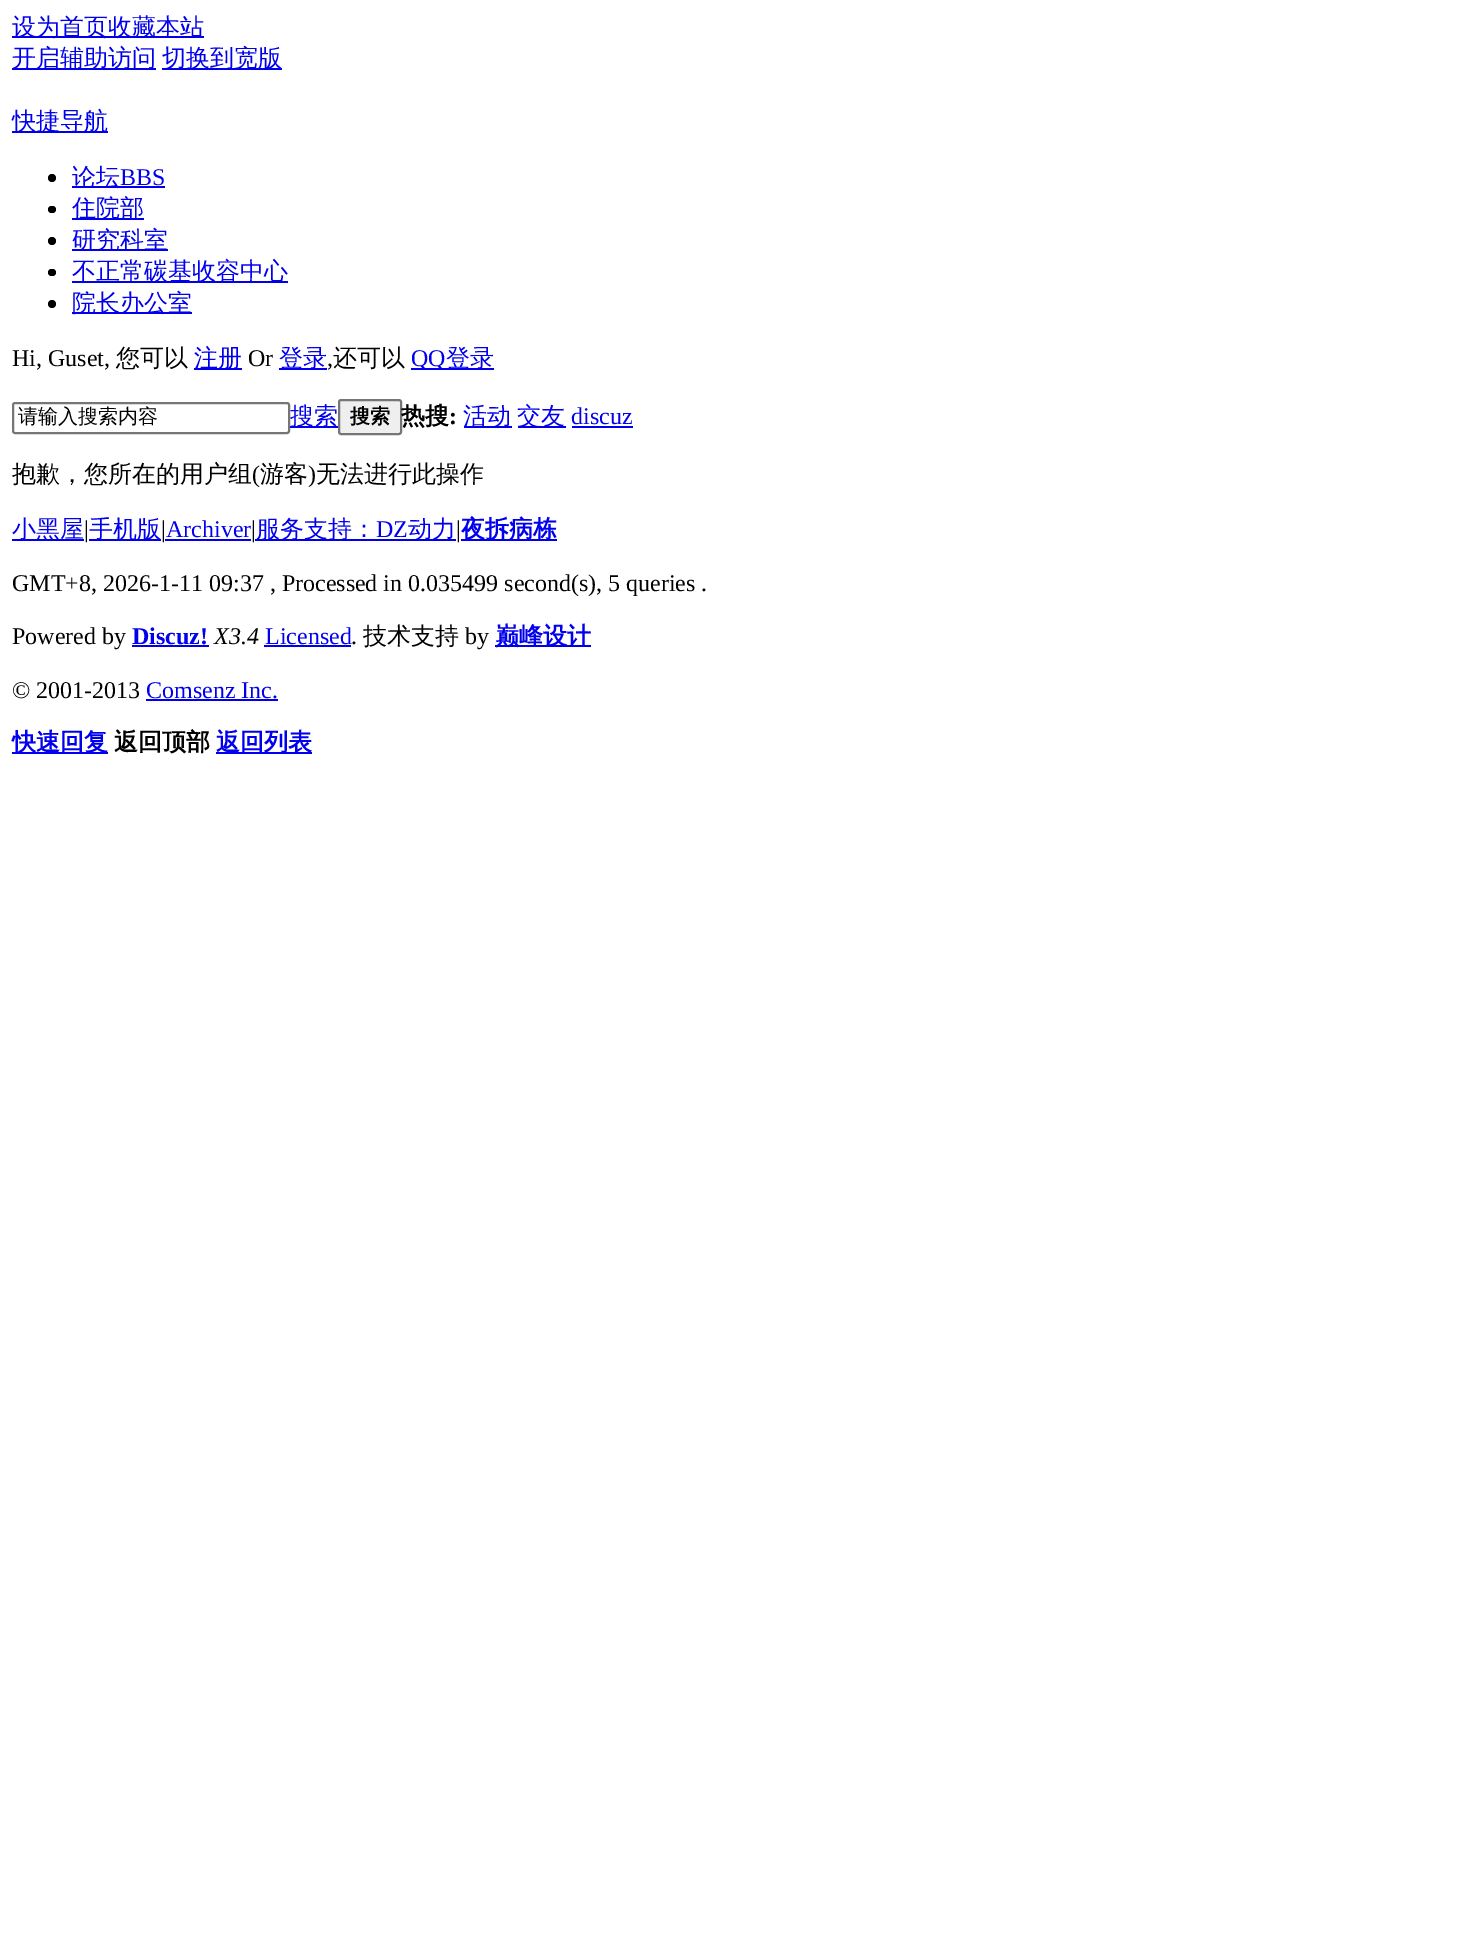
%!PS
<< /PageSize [1479 1957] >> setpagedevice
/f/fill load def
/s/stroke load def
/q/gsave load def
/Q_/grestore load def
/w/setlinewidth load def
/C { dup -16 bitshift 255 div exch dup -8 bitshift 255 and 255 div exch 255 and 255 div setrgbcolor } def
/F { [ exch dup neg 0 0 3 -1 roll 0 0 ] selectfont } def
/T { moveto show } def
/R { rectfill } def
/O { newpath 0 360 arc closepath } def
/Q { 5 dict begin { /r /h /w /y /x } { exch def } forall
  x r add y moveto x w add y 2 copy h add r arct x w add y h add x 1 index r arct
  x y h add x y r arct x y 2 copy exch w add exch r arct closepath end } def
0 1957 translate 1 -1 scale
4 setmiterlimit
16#FFFFFF C
0 0 1479 1957 R
16#0000EE C
12 36 192 2 R
/WenQuanYiZenHei-Medium 24 F
(设为首页收藏本站) 12 35 T
12 68 144 2 R
(开启辅助访问) 12 66 T
162 68 120 2 R
(切换到宽版) 162 66 T
12 131 96 2 R
(快捷导航) 12 129 T
16#000000 C
52 178 4 O f
16#0000EE C
72 186 93 2 R
(论坛) 72 185 T
/LiberationSerif-Regular 24 F
(BBS) 120 185 T
16#000000 C
48 206 8 7 3.5 Q f
16#0000EE C
72 218 72 2 R
/WenQuanYiZenHei-Medium 24 F
(住院部) 72 216 T
16#000000 C
52 241 4 O f
16#0000EE C
72 249 96 2 R
(研究科室) 72 248 T
16#000000 C
48 269 8 7 3.5 Q f
16#0000EE C
72 281 216 2 R
(不正常碳基收容中心) 72 279 T
16#000000 C
52 304 4 O f
16#0000EE C
72 312 120 2 R
(院长办公室) 72 311 T
/LiberationSerif-Regular 24 F
16#000000 C
(Hi, Guset,) 12 366 T
/WenQuanYiZenHei-Medium 24 F
(您可以) 116 366 T
16#0000EE C
194 368 48 2 R
(注册) 194 366 T
/LiberationSerif-Regular 24 F
16#000000 C
(Or) 248 366 T
16#0000EE C
279 368 48 2 R
/WenQuanYiZenHei-Medium 24 F
(登录) 279 366 T
/LiberationSerif-Regular 24 F
16#000000 C
(,) 327 366 T
/WenQuanYiZenHei-Medium 24 F
(还可以) 333 366 T
16#0000EE C
411 368 83 2 R
/LiberationSerif-Regular 24 F
(QQ) 411 366 T
/WenQuanYiZenHei-Medium 24 F
(登录) 446 366 T
16#767676 C
2 w
13 403 276 30 2 Q s
/WenQuanYiZenHei-Medium 20 F
16#000000 C
(请输入搜索内容) 18 423 T
16#0000EE C
290 426 48 2 R
/WenQuanYiZenHei-Medium 24 F
(搜索) 290 424 T
16#EFEFEF C
339 400 62 34 2 Q q f Q_
16#767676 C
s
/WenQuanYiZenHei-Bold 20 F
16#000000 C
(搜索) 350 423 T
/WenQuanYiZenHei-Bold 24 F
(热搜) 401 424 T
/LiberationSerif-Bold 24 F
(:) 449 424 T
16#0000EE C
464 426 48 2 R
/WenQuanYiZenHei-Medium 24 F
(活动) 463 424 T
518 426 48 2 R
(交友) 517 424 T
/LiberationSerif-Regular 24 F
(discuz) 571 424 T
572 426 61 2 R
/WenQuanYiZenHei-Medium 24 F
16#000000 C
(抱歉，您所在的用户组) 12 482 T
/LiberationSerif-Regular 24 F
(\() 252 482 T
/WenQuanYiZenHei-Medium 24 F
(游客) 260 482 T
/LiberationSerif-Regular 24 F
(\)) 308 482 T
/WenQuanYiZenHei-Medium 24 F
(无法进行此操作) 316 482 T
16#0000EE C
12 539 72 2 R
(小黑屋) 12 537 T
/LiberationSerif-Regular 24 F
16#000000 C
(|) 84 537 T
16#0000EE C
89 539 72 2 R
/WenQuanYiZenHei-Medium 24 F
(手机版) 89 537 T
/LiberationSerif-Regular 24 F
16#000000 C
(|) 161 537 T
16#0000EE C
(Archiver) 166 537 T
165 539 86 2 R
16#000000 C
(|) 251 537 T
16#0000EE C
255 539 201 2 R
/WenQuanYiZenHei-Medium 24 F
(服务支持：) 256 537 T
/LiberationSerif-Regular 24 F
(DZ) 376 537 T
/WenQuanYiZenHei-Medium 24 F
(动力) 408 537 T
/LiberationSerif-Regular 24 F
16#000000 C
(|) 456 537 T
16#0000EE C
461 539 96 2 R
/WenQuanYiZenHei-Bold 24 F
(夜拆病栋) 461 537 T
/LiberationSerif-Regular 24 F
16#000000 C
(GMT+8, 2026-1-11 09:37 , Processed in 0.035499 second\(s\), 5 queries .) 12 591 T
(Powered by) 12 644 T
/LiberationSerif-Bold 24 F
16#0000EE C
(Discuz!) 132 644 T
132 645 77 2 R
/LiberationSerif-Italic 24 F
16#000000 C
(X3.4) 214 644 T
/LiberationSerif-Regular 24 F
16#0000EE C
(Licensed) 265 644 T
264 645 87 2 R
16#000000 C
(.) 351 644 T
/WenQuanYiZenHei-Medium 24 F
(技术支持) 363 644 T
/LiberationSerif-Regular 24 F
(by) 465 644 T
16#0000EE C
495 645 96 2 R
/WenQuanYiZenHei-Bold 24 F
(巅峰设计) 495 644 T
/LiberationSerif-Regular 24 F
16#000000 C
(© 2001-2013) 12 698 T
16#0000EE C
(Comsenz Inc.) 146 698 T
146 699 132 2 R
12 752 96 2 R
/WenQuanYiZenHei-Bold 24 F
(快速回复) 12 750 T
16#000000 C
(返回顶部) 114 750 T
16#0000EE C
216 752 96 2 R
(返回列表) 216 750 T
showpage
